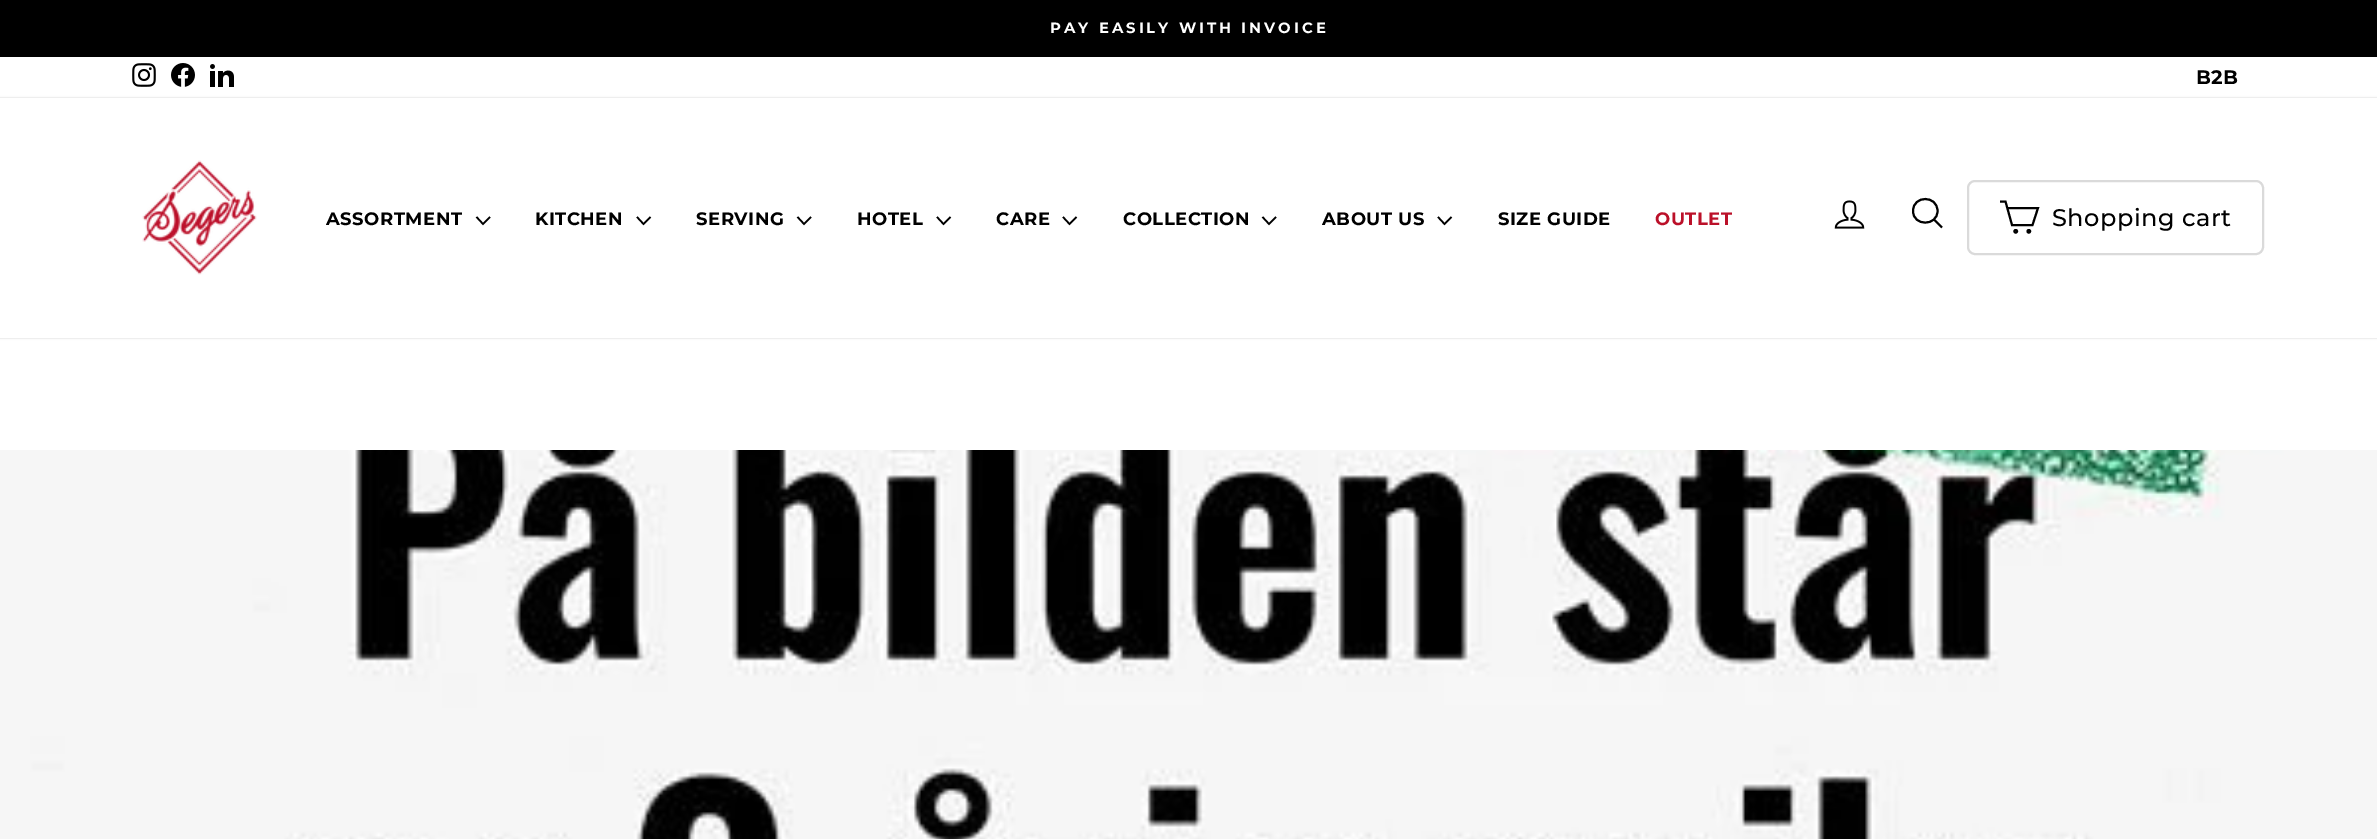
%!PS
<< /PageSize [2377 839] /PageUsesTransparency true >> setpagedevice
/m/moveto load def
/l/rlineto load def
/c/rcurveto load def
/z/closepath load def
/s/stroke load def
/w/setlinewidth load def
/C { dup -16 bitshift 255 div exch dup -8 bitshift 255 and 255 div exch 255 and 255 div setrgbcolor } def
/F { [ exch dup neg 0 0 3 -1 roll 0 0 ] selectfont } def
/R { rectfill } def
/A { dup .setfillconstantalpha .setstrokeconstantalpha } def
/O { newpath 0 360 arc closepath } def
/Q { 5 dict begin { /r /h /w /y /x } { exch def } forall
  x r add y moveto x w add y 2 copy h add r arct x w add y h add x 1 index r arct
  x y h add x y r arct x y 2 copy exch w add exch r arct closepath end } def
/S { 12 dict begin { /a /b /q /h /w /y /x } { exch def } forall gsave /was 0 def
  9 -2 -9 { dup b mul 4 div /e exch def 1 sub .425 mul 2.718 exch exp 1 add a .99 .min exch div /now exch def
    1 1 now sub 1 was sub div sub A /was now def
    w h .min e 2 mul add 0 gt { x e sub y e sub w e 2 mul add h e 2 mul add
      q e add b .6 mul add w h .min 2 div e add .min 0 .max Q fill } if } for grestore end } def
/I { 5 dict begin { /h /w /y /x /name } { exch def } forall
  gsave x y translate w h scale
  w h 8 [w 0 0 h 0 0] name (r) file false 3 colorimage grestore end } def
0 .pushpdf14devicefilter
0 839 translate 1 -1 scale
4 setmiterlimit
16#FFFFFF C
0 0 2377 839 R
16#000000 C
0 0 2377 57 R
/Montserrat-Bold 14.9 F
16#FFFFFF C
1050 33 m 3 0 (PAY EASILY WITH INVOICE) ashow
(1.rgb) 132 63 24 24 I
(2.rgb) 171 63 24 24 I
(3.rgb) 210 64 24 23 I
/Montserrat-Bold 19.5 F
16#000000 C
2196 84 m .5 0 (B2B) ashow
0 98 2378 240 0 1 .2 S
16#FFFFFF C
0 98 2377 240 R
(4.rgb) 142 160 115 115 I
/Montserrat-Bold 18 F
16#000000 C
326 225 m .5 0 (ASSORTMENT) ashow
1.6 w
476.5 217 m 6.5 7 l 7 -7 l s
535 225 m .5 0 (KITCHEN) ashow
637 217 m 6.5 7 l 7 -7 l s
696 225 m .5 0 (SERVING) ashow
797.5 217 m 6.5 7 l 7 -7 l s
857 225 m .5 0 (HOTEL) ashow
937 217 m 6.5 7 l 7 -7 l s
996 225 m .5 0 (CARE) ashow
1063 217 m 6.5 7 l 7 -7 l s
1123 225 m .5 0 (COLLECTION) ashow
1262.5 217 m 6.5 7 l 7 -7 l s
1322 225 m .5 0 (ABOUT US) ashow
1438 217 m 6.5 7 l 7 -7 l s
1498 225 m .5 0 (SIZE GUIDE) ashow
16#BB1029 C
1655 225 m .5 0 (OUTLET) ashow
(5.rgb) 1834 200 31 29 I
16#000000 C
2 w
1937.5 211 m 0 15.5 -24.5 15.5 -24.5 0 c 0 -16 24.5 -16 24.5 0 c z 1942 227.5 m -8 -8 l s
16#DADADA C
1968 181 295 73 7 Q s
16#000000 C
2007 208 m 31 0 l -5.5 17 l -20.5 0 l -6.5 -23.5 l -5.5 0 l s
2015.7 231.3 1.3 O s
2028.8 231.3 1.3 O s
/Montserrat-Medium 24 F
2052 226 m .5 0 (Shopping cart) ashow
(6.rgb) 0 450 2377 389 I
.poppdf14devicefilter showpage
